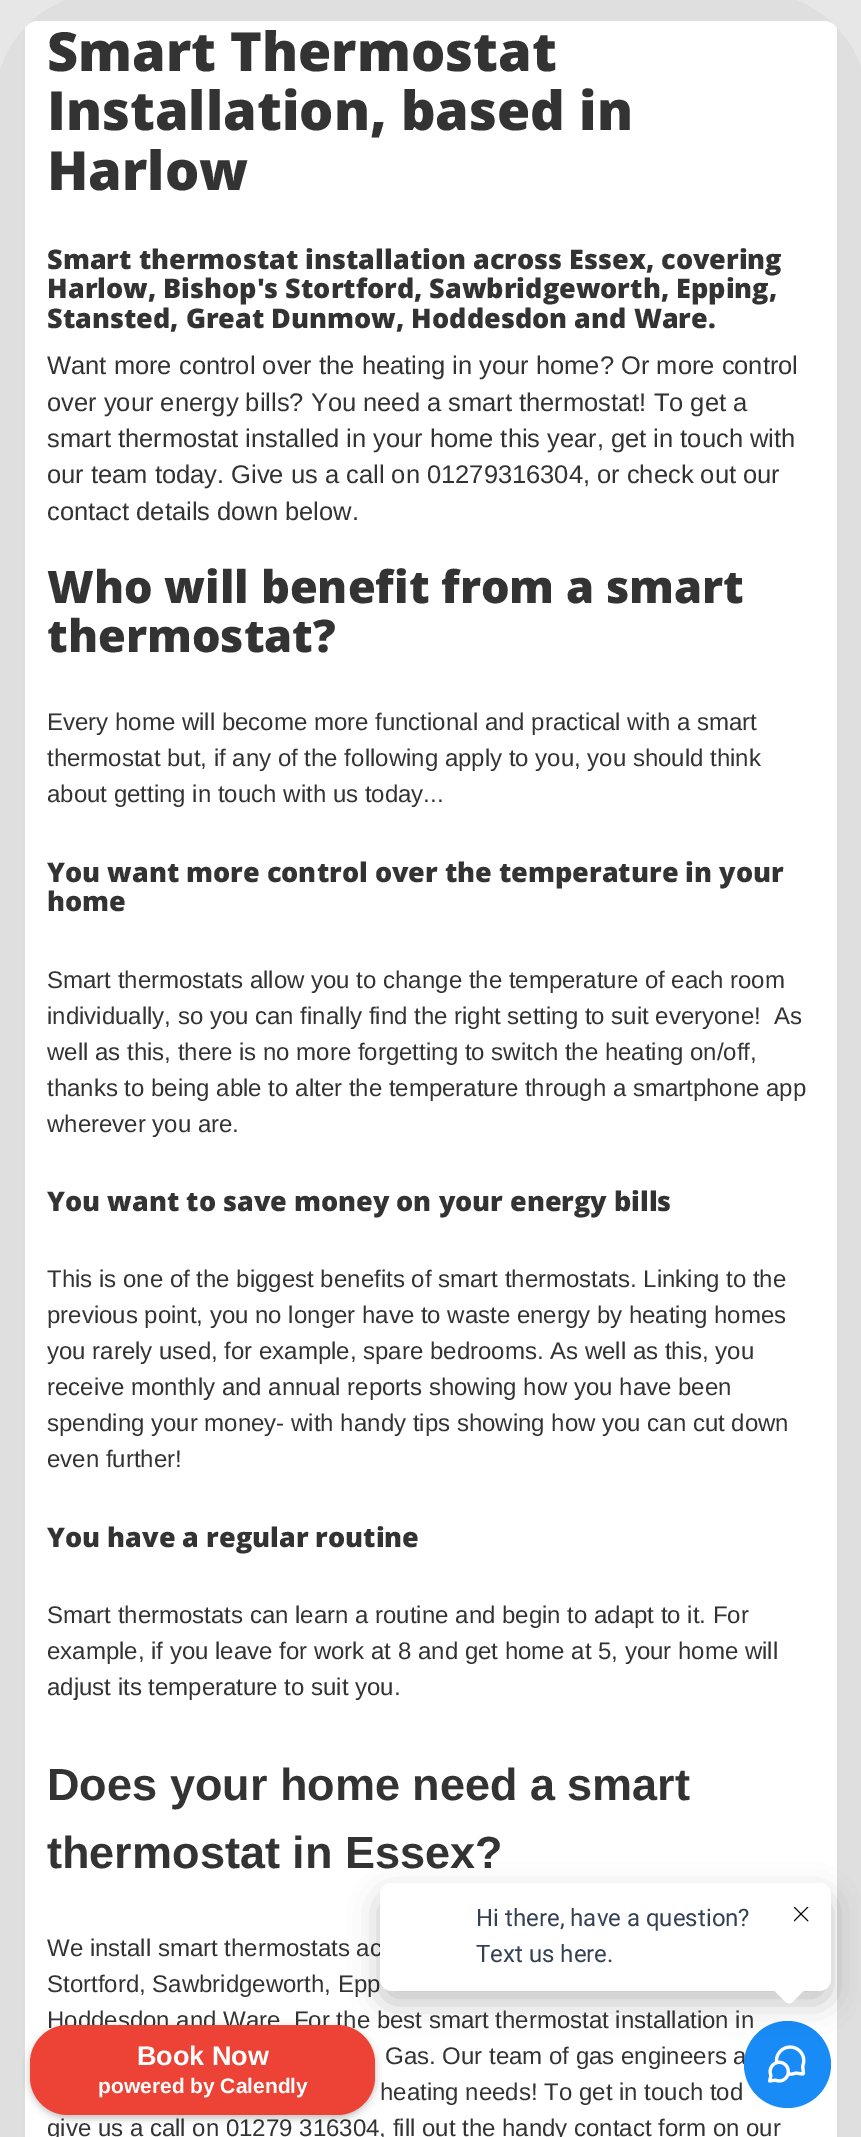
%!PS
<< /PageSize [861 2137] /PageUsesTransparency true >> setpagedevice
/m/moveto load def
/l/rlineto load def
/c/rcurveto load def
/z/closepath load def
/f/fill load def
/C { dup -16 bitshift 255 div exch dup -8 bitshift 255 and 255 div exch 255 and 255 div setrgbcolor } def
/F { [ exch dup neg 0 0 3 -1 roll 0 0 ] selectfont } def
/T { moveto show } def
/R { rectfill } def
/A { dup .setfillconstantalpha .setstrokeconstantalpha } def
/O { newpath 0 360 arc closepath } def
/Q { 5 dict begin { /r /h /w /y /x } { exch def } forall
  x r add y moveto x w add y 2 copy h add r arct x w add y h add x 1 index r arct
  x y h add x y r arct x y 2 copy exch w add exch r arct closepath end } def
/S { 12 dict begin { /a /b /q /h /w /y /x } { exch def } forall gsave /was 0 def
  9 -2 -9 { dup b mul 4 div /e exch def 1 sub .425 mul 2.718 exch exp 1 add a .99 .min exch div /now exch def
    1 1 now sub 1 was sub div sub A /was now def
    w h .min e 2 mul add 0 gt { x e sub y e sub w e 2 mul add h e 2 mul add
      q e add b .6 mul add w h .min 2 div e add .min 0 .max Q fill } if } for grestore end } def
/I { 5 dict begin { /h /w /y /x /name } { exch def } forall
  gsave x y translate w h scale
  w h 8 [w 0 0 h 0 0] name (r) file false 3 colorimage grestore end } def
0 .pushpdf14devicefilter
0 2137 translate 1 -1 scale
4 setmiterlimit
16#F1F1F1 C
0 0 861 2137 R
16#CCCCCC C
23 21 816 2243 15 112.5 1 S
16#FFFFFF C
23 21 816 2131 15 Q f
16#DDDDDD C
837 29 2 2108 R
23 29 2 2108 R
/OpenSans-ExtraBold 54 F
16#333333 C
(Smart Thermostat) 47 71 T
(Installation, based in) 47 130 T
(Harlow) 47 190 T
/OpenSans-ExtraBold 27 F
(Smart thermostat installation across Essex, covering) 47 269 T
(Harlow, Bishop's Stortford, Sawbridgeworth, Epping,) 47 298 T
(Stansted, Great Dunmow, Hoddesdon and Ware.) 47 328 T
/LiberationSans-Regular 25.5 F
(Want more control over the heating in your home? Or more control) 47 374 T
(over your energy bills? You need a smart thermostat! To get a) 47 411 T
(smart thermostat installed in your home this year, get in touch with) 47 447 T
(our team today. Give us a call on 01279316304, or check out our) 47 483 T
(contact details down below.) 47 520 T
/OpenSans-ExtraBold 45 F
(Who will benefit from a smart) 47 603 T
(thermostat?) 47 652 T
/LiberationSans-Regular 24 F
(Every home will become more functional and practical with a smart) 47 730 T
(thermostat but, if any of the following apply to you, you should think) 47 766 T
(about getting in touch with us today...) 47 802 T
/OpenSans-ExtraBold 27 F
(You want more control over the temperature in your) 47 882 T
(home) 47 911 T
/LiberationSans-Regular 24 F
(Smart thermostats allow you to change the temperature of each room) 47 988 T
(individually, so you can finally find the right setting to suit everyone!  As) 47 1024 T
(well as this, there is no more forgetting to switch the heating on/off,) 47 1060 T
(thanks to being able to alter the temperature through a smartphone app) 47 1096 T
(wherever you are.) 47 1132 T
/OpenSans-ExtraBold 27 F
(You want to save money on your energy bills) 47 1211 T
/LiberationSans-Regular 24 F
(This is one of the biggest benefits of smart thermostats. Linking to the) 47 1287 T
(previous point, you no longer have to waste energy by heating homes) 47 1323 T
(you rarely used, for example, spare bedrooms. As well as this, you) 47 1359 T
(receive monthly and annual reports showing how you have been) 47 1395 T
(spending your money- with handy tips showing how you can cut down) 47 1431 T
(even further!) 47 1467 T
/OpenSans-ExtraBold 27 F
(You have a regular routine) 47 1547 T
/LiberationSans-Regular 24 F
(Smart thermostats can learn a routine and begin to adapt to it. For) 47 1623 T
(example, if you leave for work at 8 and get home at 5, your home will) 47 1659 T
(adjust its temperature to suit you.) 47 1695 T
/LiberationSans-Bold 45 F
(Does your home need a smart) 47 1800 T
(thermostat in Essex?) 47 1868 T
/LiberationSans-Regular 24 F
(We install smart thermostats ac) 47 1956 T
(Stortford, Sawbridgeworth, Epp) 47 1992 T
(Hoddesdon and Ware. For the best smart thermostat installation in) 47 2028 T
(Gas. Our team of gas engineers a) 385 2064 T
(heating needs! To get in touch tod) 380 2100 T
(give us a call on 01279 316304, fill out the handy contact form on our) 47 2136 T
16#188BF6 C
787.5 2064.5 43.5 O f
(2.rgb) 768 2045 38 38 I
16#000000 C
30 2028 345 90 38 4 .25 S
16#ED4337 C
30 2025 345 90 38 Q f
16#000000 C
380 1895 451 108 12 15 .24 S
16#FFFFFF C
380 1883 451 108 12 Q f
/Roboto-Regular 24 F
16#344054 C
(Hi there, have a question?) 476 1926 T
(Text us here.) 476 1962 T
16#FFFFFF C
793 1967.5 m 13 13 l 2.5 2 2.5 6 0 8 c -13 13 l -2 2.5 -6 2.5 -8 0 c -13 -13 l -2.5 -2 -2.5 -6 0 -8 c 13 -13 l 2 -2.5 6 -2.5 8 0 c z f
(1.rgb) 794 1907 15 15 I
/LiberationSans-Bold 27 F
(Book Now) 137 2065 T
/LiberationSans-Bold 21 F
(powered by Calendly) 98 2093 T
.poppdf14devicefilter showpage
